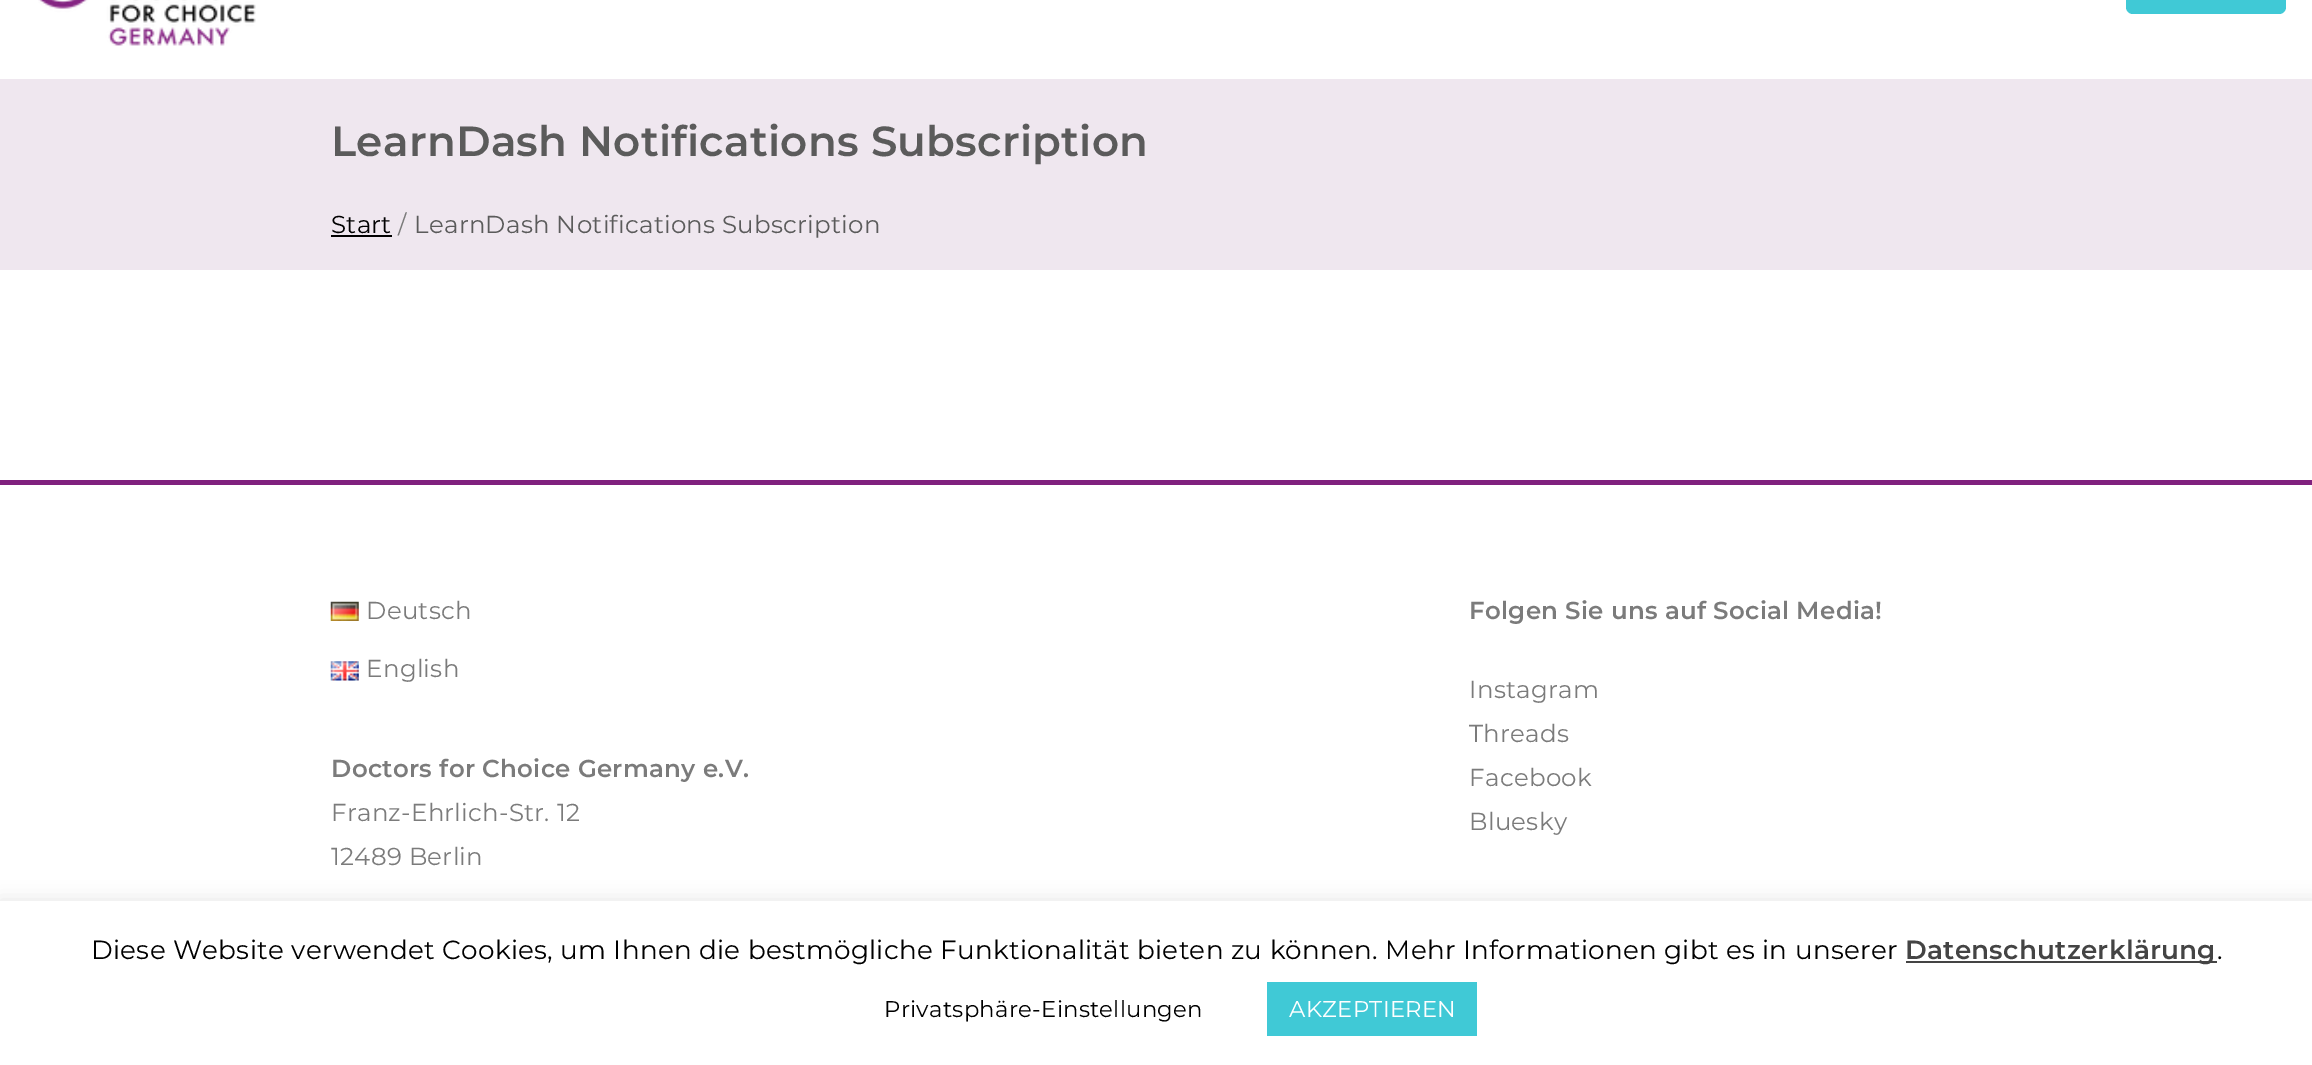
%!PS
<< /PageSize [2312 1065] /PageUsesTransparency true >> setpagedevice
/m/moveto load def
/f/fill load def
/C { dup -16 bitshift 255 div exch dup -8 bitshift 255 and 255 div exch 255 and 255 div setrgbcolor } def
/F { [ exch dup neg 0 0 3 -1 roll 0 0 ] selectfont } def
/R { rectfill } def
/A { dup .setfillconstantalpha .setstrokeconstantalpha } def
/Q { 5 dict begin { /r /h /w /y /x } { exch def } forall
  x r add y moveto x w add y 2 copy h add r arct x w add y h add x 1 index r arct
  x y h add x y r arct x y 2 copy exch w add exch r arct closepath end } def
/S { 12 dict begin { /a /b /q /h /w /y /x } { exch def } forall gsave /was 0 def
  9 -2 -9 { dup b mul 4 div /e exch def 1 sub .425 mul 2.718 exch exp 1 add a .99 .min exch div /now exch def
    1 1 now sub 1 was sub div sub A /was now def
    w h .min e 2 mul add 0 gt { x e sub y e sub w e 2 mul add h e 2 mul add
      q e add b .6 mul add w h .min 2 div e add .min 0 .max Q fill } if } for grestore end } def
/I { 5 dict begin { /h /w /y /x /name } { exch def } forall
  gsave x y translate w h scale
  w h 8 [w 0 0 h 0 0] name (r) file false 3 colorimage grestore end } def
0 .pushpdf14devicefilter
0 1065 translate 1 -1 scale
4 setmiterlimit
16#FFFFFF C
0 0 2312 1065 R
(1.rgb) 38 0 218 46 I
16#40C9D6 C
2126 -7 160 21 7 Q f
16#EFE7EF C
0 79 2312 191 R
/Montserrat-SemiBold 42 F
16#5B5B5B C
331 156 m .28 0 (LearnDash Notifications Subscription) ashow
/Montserrat-Regular 24.5 F
16#000000 C
331 233 m .28 0 (Start) ashow
331 235 61 2 R
16#7B7B7B C
398 233 m .28 0 (/) ashow
16#5B5B5B C
414 233 m .28 0 (LearnDash Notifications Subscription) ashow
16#80217E C
0 480 2312 5 R
(2.rgb) 330 601 29 20 I
16#7B7B7B C
366 619 m .28 0 (Deutsch) ashow
(3.rgb) 330 661 29 20 I
366 677 m .28 0 (English) ashow
/Montserrat-SemiBold 24.5 F
331 777 m .28 0 (Doctors for Choice Germany e.V.) ashow
/Montserrat-Regular 24.5 F
331 821 m .28 0 (Franz-Ehrlich-Str. 12) ashow
331 865 m .28 0 (12489 Berlin) ashow
/Montserrat-SemiBold 24.5 F
1469 619 m .28 0 (Folgen Sie uns auf Social Media!) ashow
/Montserrat-Regular 24.5 F
1469 698 m .28 0 (Instagram) ashow
1469 742 m .28 0 (Threads) ashow
1469 786 m .28 0 (Facebook) ashow
1469 830 m .28 0 (Bluesky) ashow
16#ACABAB C
0 900 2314 164 0 9 .3 S
16#FFFFFF C
0 901 2312 164 R
/Montserrat-Regular 26.25 F
16#000000 C
91 959 m .28 0 (Diese Website verwendet Cookies, um Ihnen die bestmögliche Funktionalität bieten zu können. Mehr Informationen gibt es in unserer) ashow
16#444444 C
1906 961 311 2 R
/Montserrat-SemiBold 26.25 F
1905 959 m .28 0 (Datenschutzerklärung) ashow
/Montserrat-Regular 26.25 F
16#000000 C
2217 959 m .28 0 (.) ashow
/Montserrat-Regular 22.75 F
884 1017 m .28 0 (Privatsphäre-Einstellungen) ashow
16#40C9D6 C
1267 982 210 54 R
16#FFFFFF C
1289 1017 m .28 0 (AKZEPTIEREN) ashow
.poppdf14devicefilter showpage
